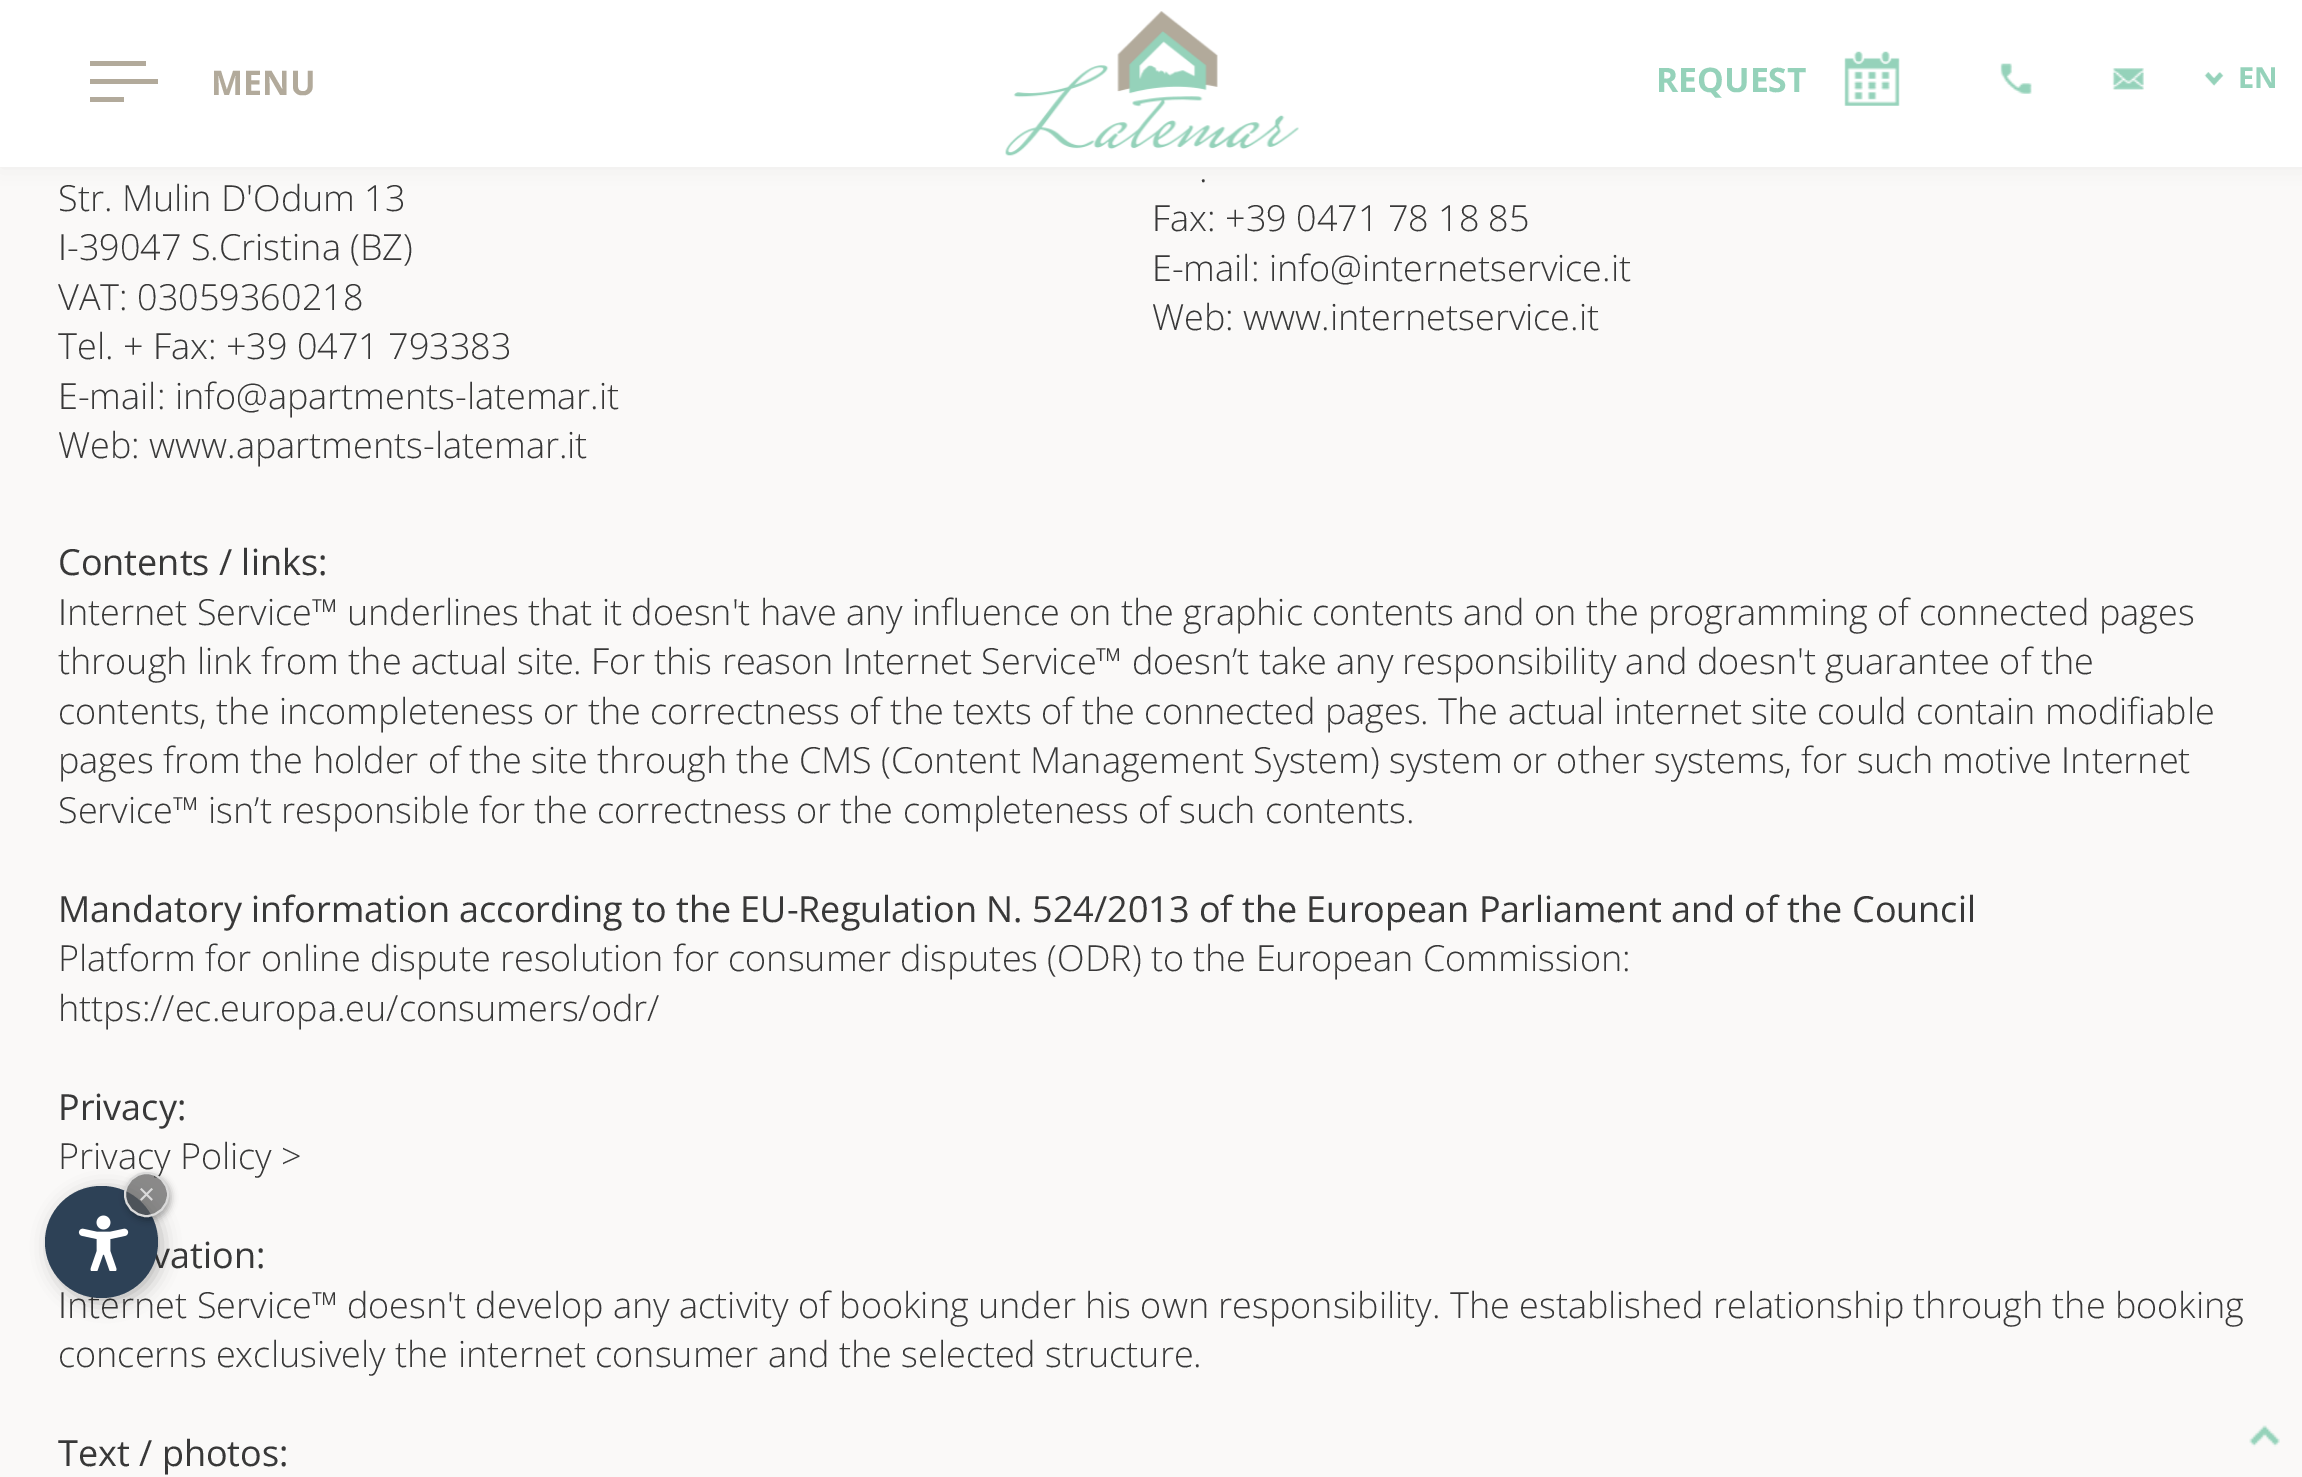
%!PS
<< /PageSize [2302 1477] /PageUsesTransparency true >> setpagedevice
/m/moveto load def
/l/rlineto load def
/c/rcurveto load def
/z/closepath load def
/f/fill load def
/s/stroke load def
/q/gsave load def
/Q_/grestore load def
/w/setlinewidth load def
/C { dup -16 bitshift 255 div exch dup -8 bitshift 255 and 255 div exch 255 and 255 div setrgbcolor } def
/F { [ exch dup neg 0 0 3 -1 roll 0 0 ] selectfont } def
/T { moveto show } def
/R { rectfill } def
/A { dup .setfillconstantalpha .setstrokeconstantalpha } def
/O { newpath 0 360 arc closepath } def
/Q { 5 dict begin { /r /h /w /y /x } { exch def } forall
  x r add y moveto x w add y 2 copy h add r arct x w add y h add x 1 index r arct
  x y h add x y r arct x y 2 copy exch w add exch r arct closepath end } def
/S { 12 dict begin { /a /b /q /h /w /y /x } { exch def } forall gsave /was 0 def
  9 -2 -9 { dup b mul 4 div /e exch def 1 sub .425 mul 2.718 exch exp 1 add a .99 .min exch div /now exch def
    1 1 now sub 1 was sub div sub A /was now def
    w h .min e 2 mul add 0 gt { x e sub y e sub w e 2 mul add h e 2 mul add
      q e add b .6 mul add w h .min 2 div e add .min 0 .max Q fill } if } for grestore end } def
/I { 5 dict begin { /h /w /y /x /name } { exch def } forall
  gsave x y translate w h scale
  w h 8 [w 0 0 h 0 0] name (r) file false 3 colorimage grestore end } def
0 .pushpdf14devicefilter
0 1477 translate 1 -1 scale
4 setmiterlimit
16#FAF9F8 C
0 0 2302 1477 R
16#000000 C
0 0 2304 167 0 11 .05 S
16#FFFFFF C
0 0 2302 167 R
16#B2AA9B C
90 61 56 5 R
90 79 68 5 R
90 97 34 5 R
/OpenSans-Bold 34 F
(MENU) 211 95 T
(1.rgb) 1005 11 294 145 I
/OpenSans-Bold 33.75 F
16#95D2BA C
(REQUEST) 1656 92 T
(2.rgb) 1844 51 56 55 I
(3.rgb) 2000 63 32 31 I
(4.rgb) 2112 68 32 22 I
(5.rgb) 2204 72 20 14 I
/OpenSans-Bold 29 F
(EN) 2238 88 T
/OpenSans-Light 36 F
16#383838 C
(Str. Mulin D'Odum 13) 58 211 T
(I-39047 S.Cristina \(BZ\)) 58 260 T
(VAT: 03059360218) 58 310 T
(Tel. + Fax: +39 0471 793383) 58 359 T
(E-mail: info@apartments-latemar.it) 58 409 T
(Web: www.apartments-latemar.it) 58 458 T
(.) 1199 182 T
(Fax: +39 0471 78 18 85) 1152 231 T
(E-mail: info@internetservice.it) 1152 281 T
(Web: www.internetservice.it) 1152 330 T
/OpenSans-Regular 36 F
(Contents / links:) 58 575 T
/OpenSans-Light 36 F
(Internet Service™ underlines that it doesn't have any influence on the graphic contents and on the programming of connected pages) 58 625 T
(through link from the actual site. For this reason Internet Service™ doesn’t take any responsibility and doesn't guarantee of the) 58 674 T
(contents, the incompleteness or the correctness of the texts of the connected pages. The actual internet site could contain modifiable) 58 724 T
(pages from the holder of the site through the CMS \(Content Management System\) system or other systems, for such motive Internet) 58 773 T
(Service™ isn’t responsible for the correctness or the completeness of such contents.) 58 823 T
/OpenSans-Regular 36 F
(Mandatory information according to the EU-Regulation N. 524/2013 of the European Parliament and of the Council) 58 922 T
/OpenSans-Light 36 F
(Platform for online dispute resolution for consumer disputes \(ODR\) to the European Commission:) 58 971 T
(https://ec.europa.eu/consumers/odr/) 58 1021 T
/OpenSans-Regular 36 F
(Privacy:) 58 1120 T
/OpenSans-Light 36 F
(Privacy Policy >) 58 1169 T
/OpenSans-Regular 36 F
(vation:) 152 1268 T
/OpenSans-Light 36 F
(Internet Service™ doesn't develop any activity of booking under his own responsibility. The established relationship through the booking) 58 1318 T
(concerns exclusively the internet consumer and the selected structure.) 58 1367 T
/OpenSans-Regular 36 F
(Text / photos:) 58 1466 T
16#000000 C
50 1190 112 113 56 9 .25 S
16#2D4156 C
45 1186 113 112 56 Q f
(6.rgb) 78 1215 51 56 I
q
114 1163 m 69 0 l 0 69 l -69 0 l z 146.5 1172 m 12.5 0 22.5 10 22.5 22.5 c 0 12.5 -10 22.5 -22.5 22.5 c -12.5 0 -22.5 -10 -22.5 -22.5 c 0 -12.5 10 -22.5 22.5 -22.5 c z eoclip newpath
16#000000 C
126 1175 45 45 22.5 3.5 .3 S
Q_
0.7 A
16#5A5A5A C
146.5 1194.5 21.5 O f
1 A
16#DADADA C
2 w
146.5 1194.5 21.5 O s
/LiberationSans-Regular 29 F
(×) 138 1204 T
(7.rgb) 2249 1425 31 22 I
.poppdf14devicefilter showpage
